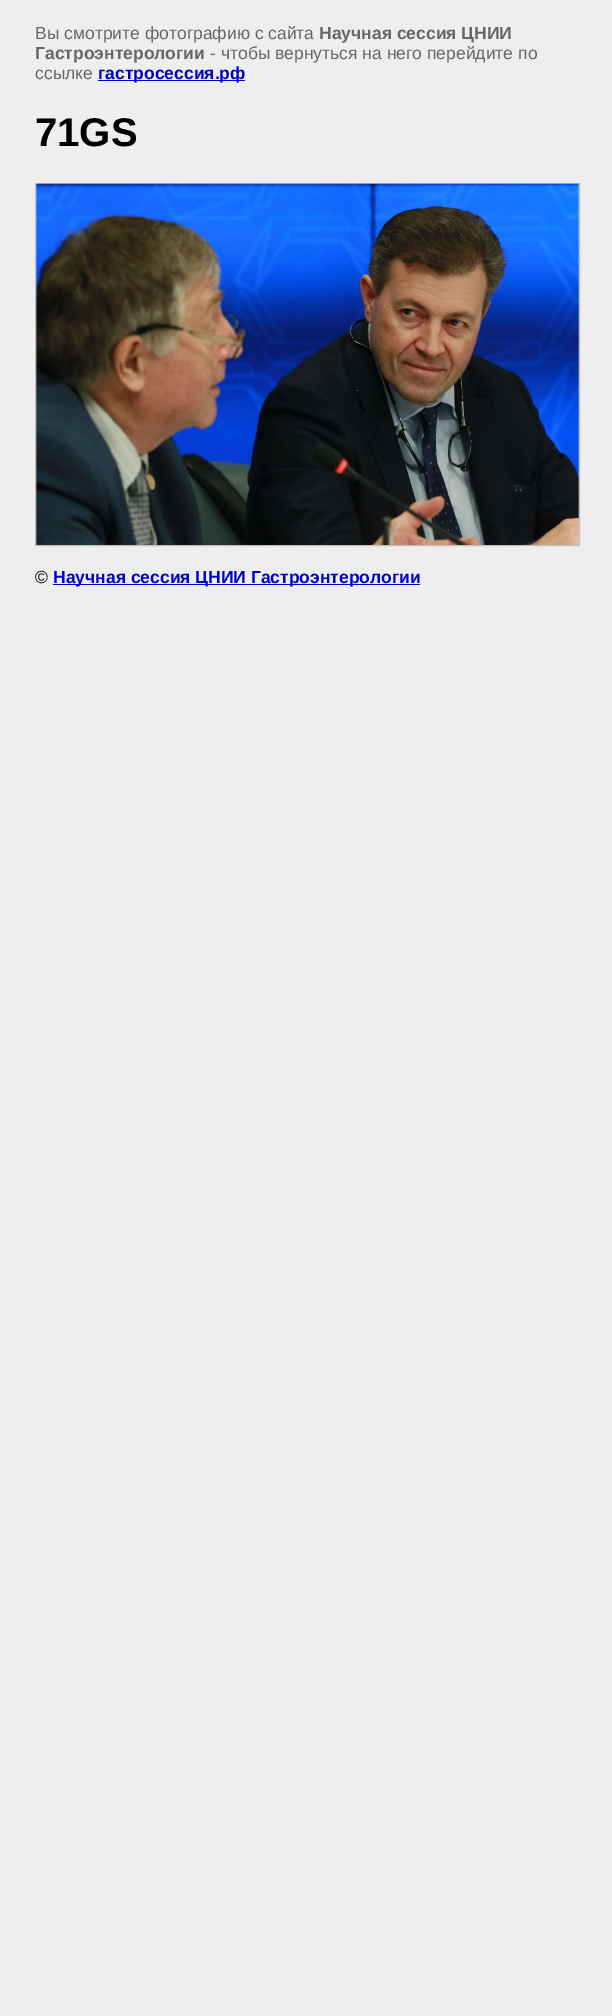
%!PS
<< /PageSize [612 2016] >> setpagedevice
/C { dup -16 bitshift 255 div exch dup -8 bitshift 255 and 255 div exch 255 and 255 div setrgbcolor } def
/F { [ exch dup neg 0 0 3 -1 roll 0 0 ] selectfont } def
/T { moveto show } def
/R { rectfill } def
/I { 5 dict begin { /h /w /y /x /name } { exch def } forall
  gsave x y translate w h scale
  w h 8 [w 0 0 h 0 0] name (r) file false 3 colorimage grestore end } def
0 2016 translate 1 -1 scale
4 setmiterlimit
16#EEEEEE C
0 0 612 2016 R
/LiberationSans-Regular 17.5 F
16#666666 C
(Вы смотрите фотографию с сайта) 35 39 T
/LiberationSans-Bold 17.5 F
(Научная сессия ЦНИИ) 319 39 T
(Гастроэнтерологии) 35 59 T
/LiberationSans-Regular 17.5 F
(- чтобы вернуться на него перейдите по) 210 59 T
(ссылке) 35 79 T
16#0000CC C
98 80 147 1 R
/LiberationSans-Bold 17.5 F
(гастросессия.рф) 98 79 T
/LiberationSans-Bold 40 F
16#000000 C
(71GS) 35 146 T
16#C0C0C0 C
35.5 183.5 544 362 rectstroke
(1.rgb) 36 183 543 362 I
/LiberationSans-Regular 17.5 F
16#000000 C
(©) 35 583 T
16#0000CC C
53 584 367 1 R
/LiberationSans-Bold 17.5 F
(Научная сессия ЦНИИ Гастроэнтерологии) 53 583 T
showpage
